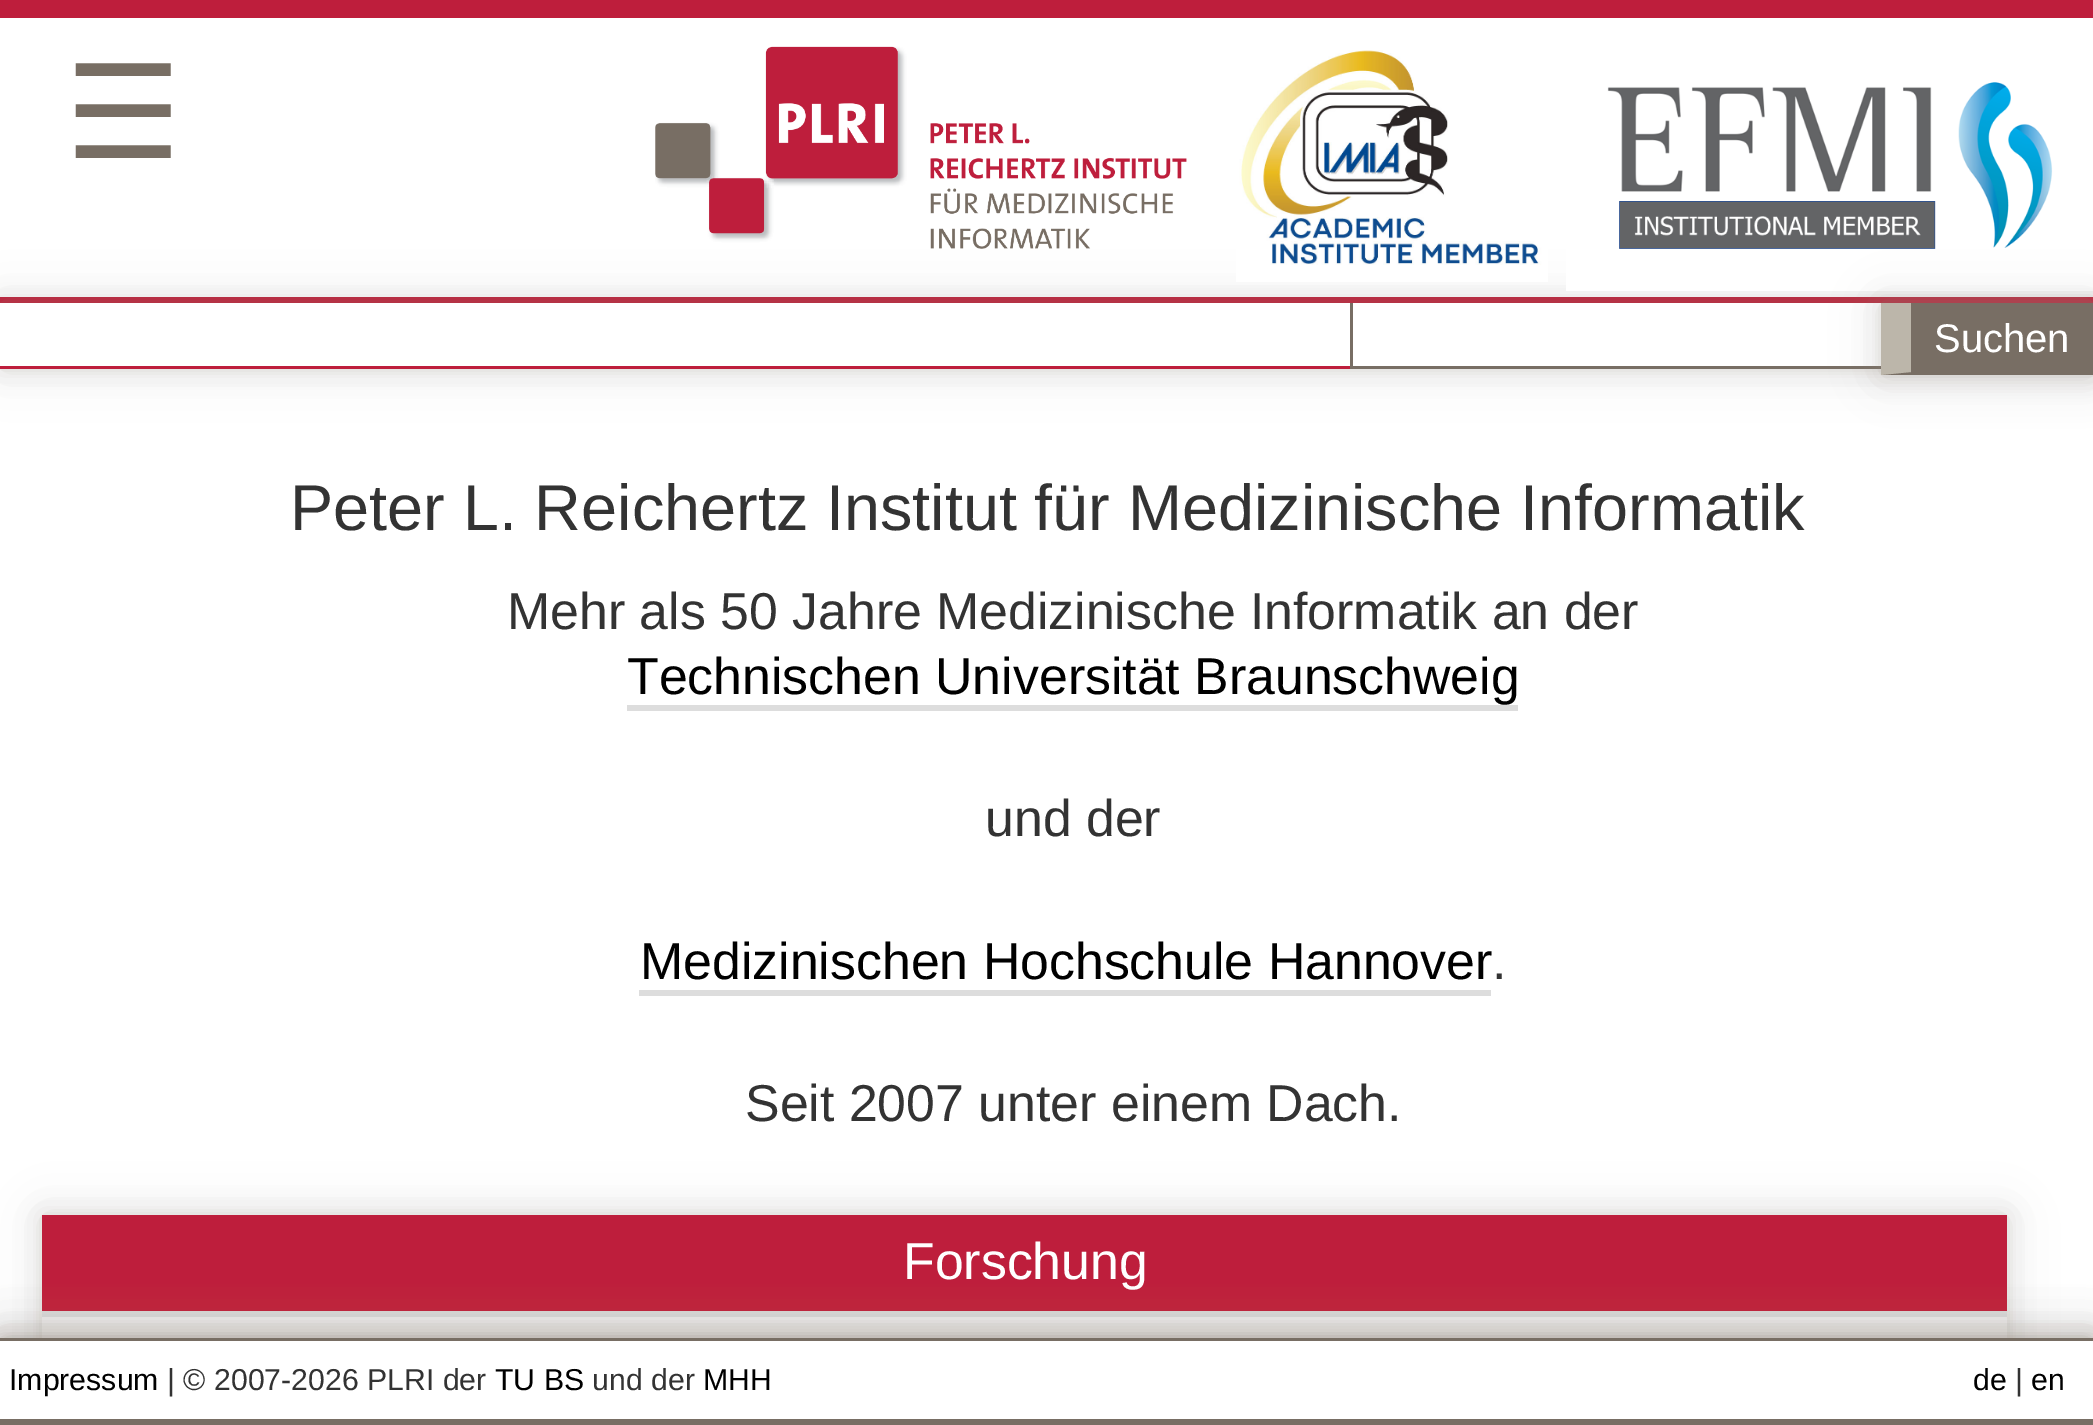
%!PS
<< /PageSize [2093 1425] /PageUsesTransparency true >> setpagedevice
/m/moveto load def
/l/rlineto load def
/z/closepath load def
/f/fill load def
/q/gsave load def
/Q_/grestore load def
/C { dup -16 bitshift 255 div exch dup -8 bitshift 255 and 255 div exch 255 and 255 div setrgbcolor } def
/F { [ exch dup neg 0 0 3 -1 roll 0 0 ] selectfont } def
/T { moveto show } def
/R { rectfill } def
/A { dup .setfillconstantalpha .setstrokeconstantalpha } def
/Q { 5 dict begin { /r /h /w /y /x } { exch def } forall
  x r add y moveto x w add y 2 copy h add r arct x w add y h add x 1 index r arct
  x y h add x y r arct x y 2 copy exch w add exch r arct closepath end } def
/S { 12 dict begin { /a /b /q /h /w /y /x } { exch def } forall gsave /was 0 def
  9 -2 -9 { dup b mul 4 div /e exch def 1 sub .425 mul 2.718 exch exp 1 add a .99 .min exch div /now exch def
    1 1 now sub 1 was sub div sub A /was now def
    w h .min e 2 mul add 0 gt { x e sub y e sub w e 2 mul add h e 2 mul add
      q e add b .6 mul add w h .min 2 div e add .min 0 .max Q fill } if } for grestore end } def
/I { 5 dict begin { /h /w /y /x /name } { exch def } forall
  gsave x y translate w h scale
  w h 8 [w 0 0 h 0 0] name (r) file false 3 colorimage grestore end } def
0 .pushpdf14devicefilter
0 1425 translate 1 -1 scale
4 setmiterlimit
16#FFFFFF C
0 0 2093 1425 R
16#BE1E3C C
0 0 2093 18 R
0 297 2093 6 R
/DejaVuSans-Regular 130 F
16#786E64 C
(☰) 65 158 T
q
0 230 m 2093 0 l 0 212 l -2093 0 l z 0 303 m 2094 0 l 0 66 l -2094 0 l z eoclip newpath
16#8B8177 C
0 303 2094 66 0 24 .2 S
Q_
(1.rgb) 655 46 532 203 I
q
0 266 m 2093 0 l 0 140 l -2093 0 l z 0 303 m 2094 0 l 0 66 l -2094 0 l z eoclip newpath
16#8B8177 C
0 303 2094 66 0 12 .2 S
Q_
(2.rgb) 1236 50 312 232 I
(3.rgb) 1566 82 527 209 I
16#BE1E3C C
0 366 1350 3 R
16#786E64 C
1350 366 531 3 R
1350 303 3 66 R
16#8B8177 C
1881 303 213 72 0 24 .2 S
1881 303 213 72 0 12 .2 S
16#786E64 C
1881 303 212 72 R
16#BCB6AA C
1881 375 m 0 -72 l 30 0 l 0 69 l z f
/LiberationSans-Regular 40 F
16#FFFFFF C
(Suchen) 1934 352 T
/LiberationSans-Regular 64.8 F
16#333333 C
290 530 m -.25 0 32 (Peter L. Reichertz Institut für Medizinische Informatik) widthshow
/LiberationSans-Regular 51.8 F
(Mehr als 50 Jahre Medizinische Informatik an der) 507 629 T
16#000000 C
(Technischen Universität Braunschweig) 627 694 T
16#DDDDDD C
627 705 891 6 R
16#333333 C
(und der) 985 836 T
16#000000 C
(Medizinischen Hochschule Hannover) 640 979 T
16#DDDDDD C
639 990 852 6 R
16#333333 C
(.) 1492 979 T
(Seit 2007 unter einem Dach.) 745 1121 T
16#8B8177 C
42 1215 1965 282 0 24 .2 S
42 1215 1965 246 0 12 .2 S
16#F2F1F0 C
42 1317 1965 21 R
16#BE1E3C C
42 1215 1965 96 R
16#DDDDDD C
42 1311 1965 6 R
16#FFFFFF C
(Forschung) 903 1279 T
16#8B8177 C
0 1341 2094 84 0 24 .2 S
0 1341 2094 84 0 12 .2 S
0 1341 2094 84 0 24 .2 S
0 1341 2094 84 0 12 .2 S
0 1338 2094 87 0 24 .2 S
0 1338 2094 87 0 12 .2 S
16#FFFFFF C
0 1341 2093 78 R
16#786E64 C
0 1338 2093 3 R
0 1419 2093 6 R
/LiberationSans-Regular 30.25 F
16#000000 C
(Impressum) 9 1390 T
16#333333 C
(| © 2007-2026 PLRI der) 167 1390 T
16#000000 C
(TU BS) 495 1390 T
16#333333 C
(und der) 592 1390 T
16#000000 C
(MHH) 703 1390 T
(de) 1973 1390 T
16#333333 C
(|) 2015 1390 T
16#000000 C
(en) 2031 1390 T
.poppdf14devicefilter showpage
